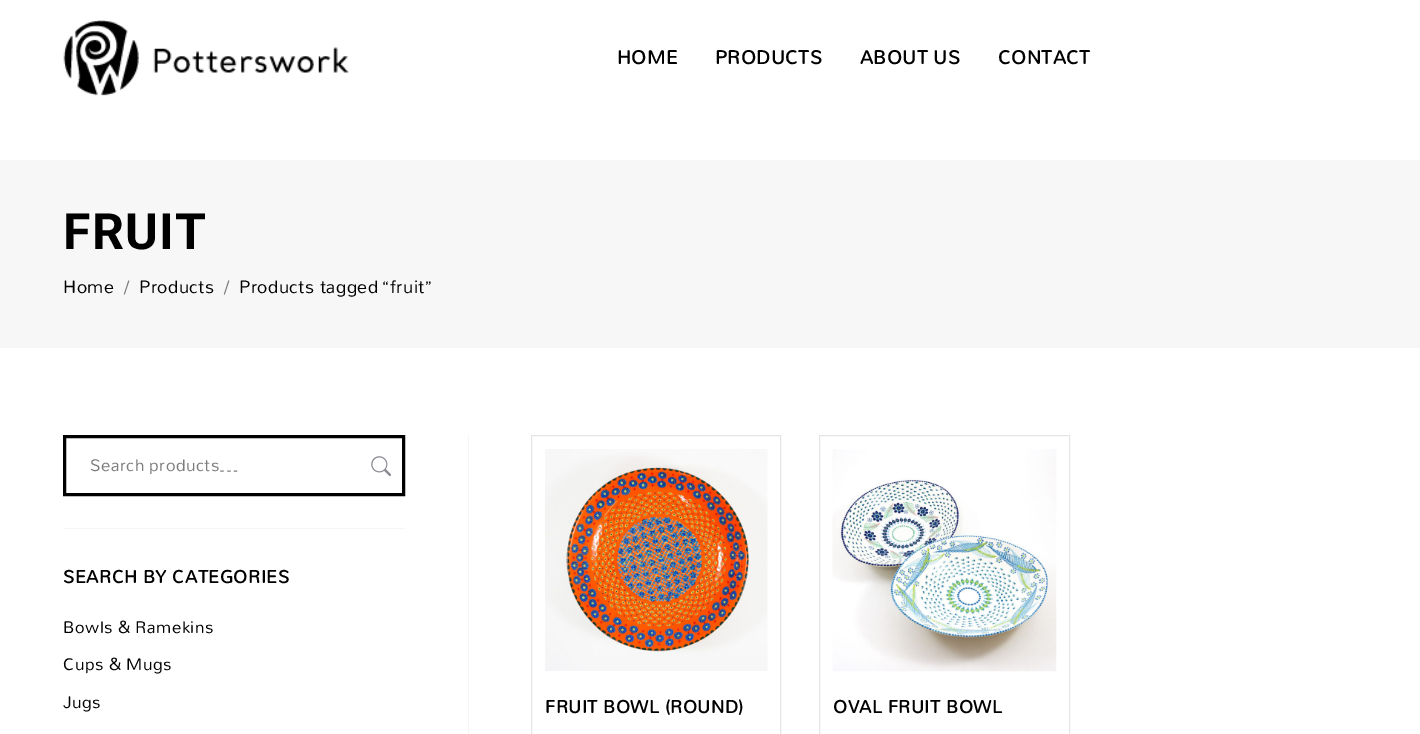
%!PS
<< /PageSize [1420 734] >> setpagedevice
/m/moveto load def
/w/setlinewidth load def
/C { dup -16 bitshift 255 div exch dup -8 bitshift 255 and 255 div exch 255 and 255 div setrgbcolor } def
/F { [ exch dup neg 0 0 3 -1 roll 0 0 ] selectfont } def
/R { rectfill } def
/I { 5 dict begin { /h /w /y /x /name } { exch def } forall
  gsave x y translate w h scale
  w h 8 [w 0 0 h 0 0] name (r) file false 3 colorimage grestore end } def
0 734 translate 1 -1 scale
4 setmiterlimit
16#FFFFFF C
0 0 1420 734 R
(1.rgb) 63 20 286 76 I
/Mallanna-Bold 21.25 F
16#000000 C
617 64 m .5 0 (HOME) ashow
715 64 m .5 0 (PRODUCTS) ashow
860 64 m .5 0 (ABOUT US) ashow
998 64 m .5 0 (CONTACT) ashow
16#F7F7F7 C
0 160 1420 188 R
/Roboto-Bold 50 F
16#000000 C
63 249 m 1.25 0 (FRUIT) ashow
/Mallanna-Regular 20 F
63 293 m .5 0 (Home) ashow
16#7C7C7C C
124 293 m .5 0 (/) ashow
16#000000 C
139 293 m .5 0 (Products) ashow
16#7C7C7C C
224 293 m .5 0 (/) ashow
16#000000 C
239 293 m .5 0 (Products tagged “fruit”) ashow
16#F7F4F1 C
468 435 1 299 R
16#000000 C
3 w
64.5 436.5 339 58 rectstroke
/Mallanna-Regular 18.75 F
16#7C7C7C C
90 471 m .5 0 (Search products…) ashow
(2.rgb) 371 456 20 20 I
16#F7F4F1 C
63 528 342 1 R
/Mallanna-Bold 20 F
16#000000 C
63 583 m .5 0 (SEARCH BY CATEGORIES) ashow
/Mallanna-Regular 18.75 F
63 633 m .5 0 (Bowls & Ramekins) ashow
63 670 m .5 0 (Cups & Mugs) ashow
63 708 m .5 0 (Jugs) ashow
16#E5E5E5 C
1 w
531.5 435.5 249 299 rectstroke
(3.rgb) 545 449 223 222 I
/Mallanna-Bold 20 F
16#000000 C
545 713 m .5 0 (FRUIT BOWL \(ROUND\)) ashow
16#E5E5E5 C
819.5 435.5 250 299 rectstroke
(4.rgb) 832 449 225 223 I
16#000000 C
833 713 m .5 0 (OVAL FRUIT BOWL) ashow
showpage
